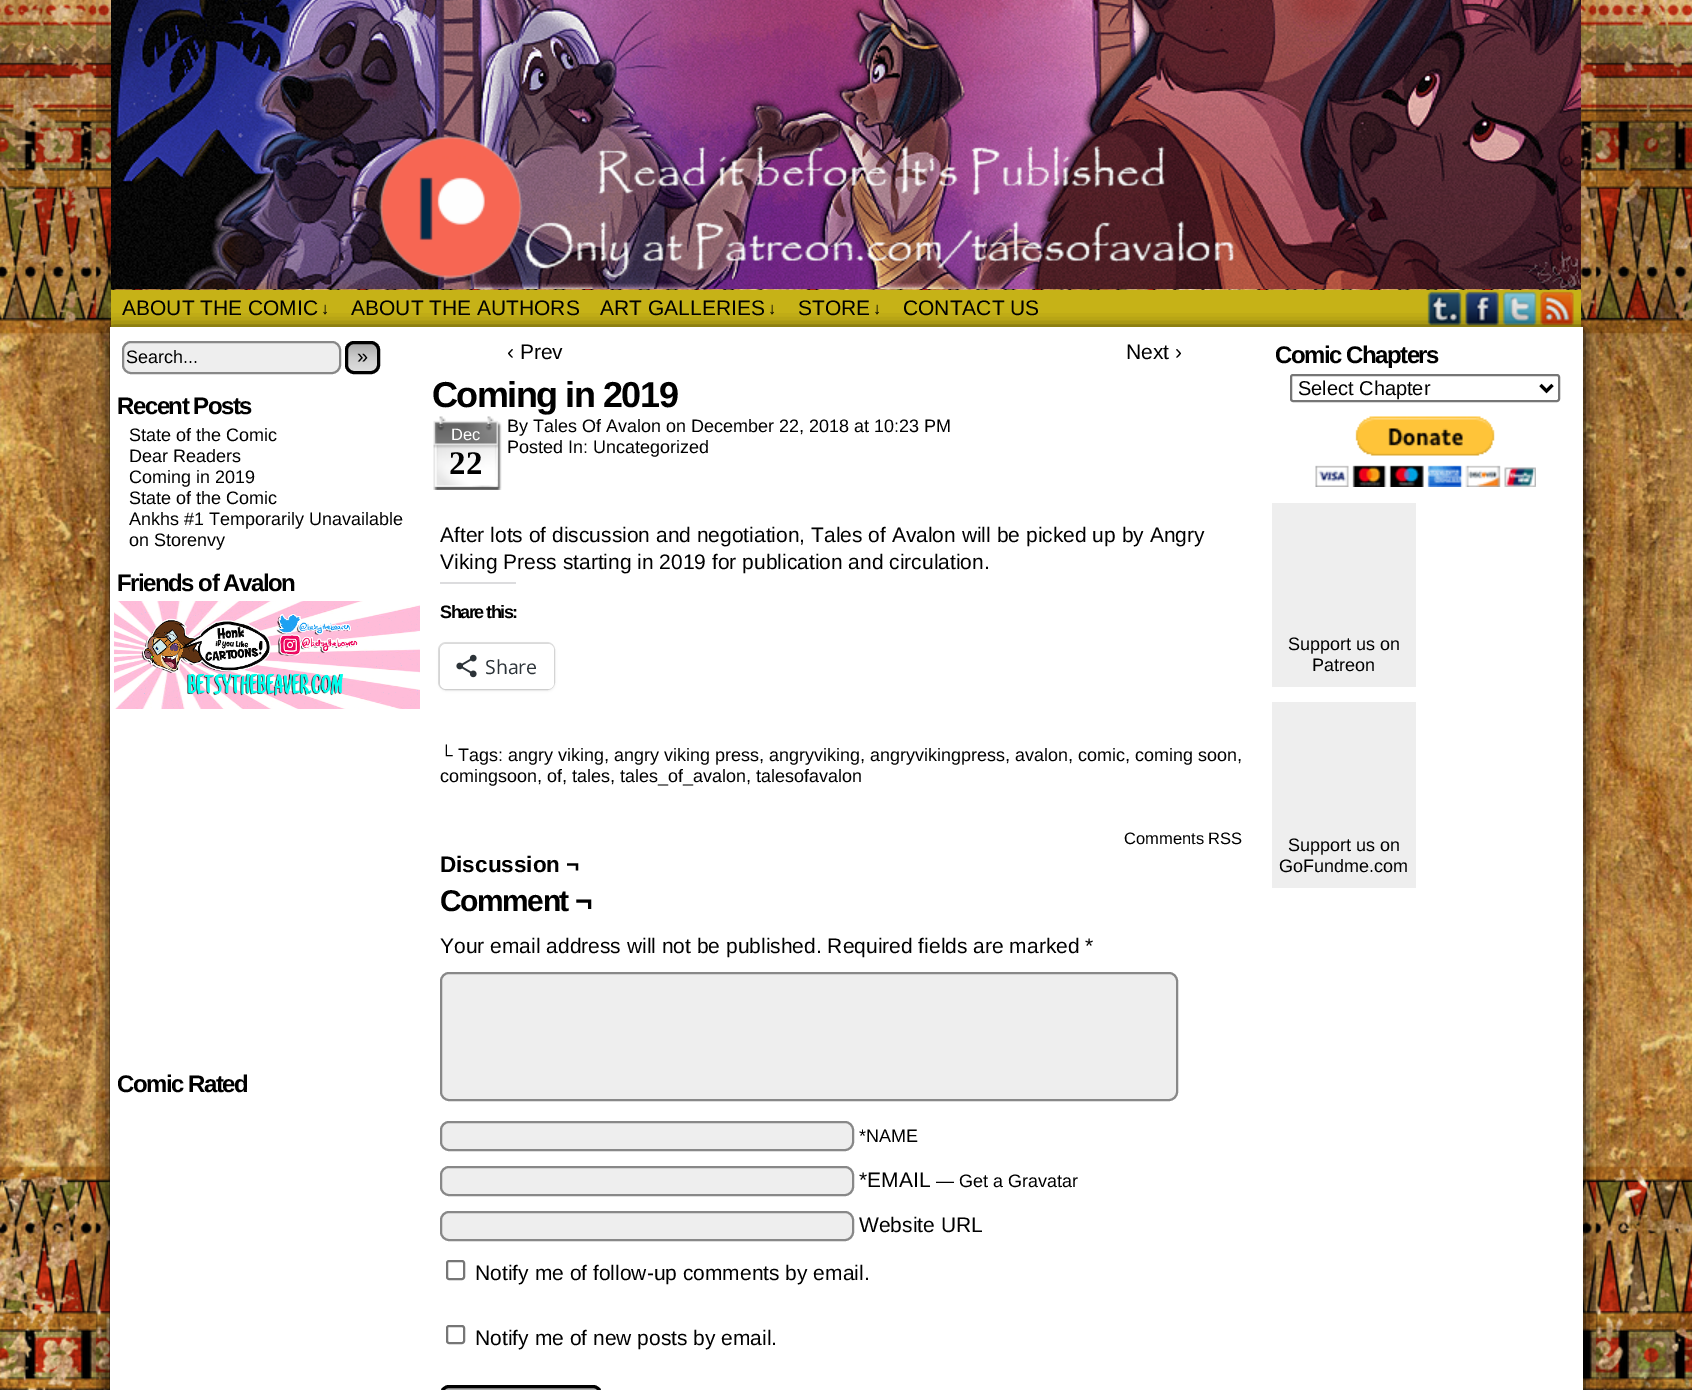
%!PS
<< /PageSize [1692 1390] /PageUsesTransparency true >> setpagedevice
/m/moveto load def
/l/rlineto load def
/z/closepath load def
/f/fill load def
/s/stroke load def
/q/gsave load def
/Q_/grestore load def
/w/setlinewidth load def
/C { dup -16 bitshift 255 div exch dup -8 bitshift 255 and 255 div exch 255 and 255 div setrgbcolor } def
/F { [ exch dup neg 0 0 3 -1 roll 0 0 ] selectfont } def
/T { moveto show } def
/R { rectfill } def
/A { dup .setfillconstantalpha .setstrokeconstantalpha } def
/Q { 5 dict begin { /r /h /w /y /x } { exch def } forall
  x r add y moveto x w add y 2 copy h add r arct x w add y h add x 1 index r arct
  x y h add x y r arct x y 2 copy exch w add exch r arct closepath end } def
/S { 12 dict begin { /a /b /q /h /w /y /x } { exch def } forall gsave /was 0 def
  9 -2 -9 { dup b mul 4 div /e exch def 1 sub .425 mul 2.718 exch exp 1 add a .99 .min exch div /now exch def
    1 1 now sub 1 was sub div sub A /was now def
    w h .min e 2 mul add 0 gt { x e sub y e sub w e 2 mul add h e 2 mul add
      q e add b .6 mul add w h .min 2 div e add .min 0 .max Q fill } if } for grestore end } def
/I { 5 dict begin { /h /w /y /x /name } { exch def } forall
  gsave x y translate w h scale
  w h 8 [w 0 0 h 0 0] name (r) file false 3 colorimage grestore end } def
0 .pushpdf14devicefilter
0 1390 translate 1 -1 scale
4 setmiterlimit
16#FFFFFF C
0 0 1692 1390 R
(1.rgb) 0 0 1692 1390 I
(2.rgb) 111 0 1470 289 I
16#C6B217 C
111 290 1470 37 R
(3.rgb) 1427 291 35 35 I
(4.rgb) 1465 291 34 35 I
(5.rgb) 1502 291 35 35 I
(6.rgb) 1540 291 34 35 I
16#000000 C
111 330 1473 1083 0 7.5 1 S
/LiberationSans-Regular 21 F
(ABOUT THE COMIC) 122 315 T
/LiberationSans-Regular 16.5 F
(↓) 321 314 T
/LiberationSans-Regular 21 F
(ABOUT THE AUTHORS) 351 315 T
(ART GALLERIES) 600 315 T
/LiberationSans-Regular 16.5 F
(↓) 768 314 T
/LiberationSans-Regular 21 F
(STORE) 798 315 T
/LiberationSans-Regular 16.5 F
(↓) 873 314 T
/LiberationSans-Regular 21 F
(CONTACT US) 903 315 T
16#FFFFFF C
110 327 1473 1063 R
16#EEEEEE C
123 342 217 31 8 Q q f Q_
16#888888 C
2 w
s
/LiberationSans-Regular 18 F
16#000000 C
(Search...) 126 363 T
q
345 341 35 33 9 Q clip newpath
q 345 344 m 35 0 l 0 27 l -35 0 l z clip newpath
<< /ShadingType 2 /ColorSpace /DeviceRGB /Coords [362 344 362 371] /Extend [true true] /Function << /FunctionType 3 /Domain [0 1] /Functions [<< /FunctionType 2 /Domain [0 1] /C0 [.667 .667 .667] /C1 [.8 .8 .8] /N 1 >> << /FunctionType 2 /Domain [0 1] /C0 [.8 .8 .8] /C1 [.867 .867 .867] /N 1 >>] /Bounds [.5] /Encode [0 1 0 1] >> >> shfill Q_
Q_
3 w
346.5 342.5 32 30 7.5 Q s
/LiberationSans-Regular 20 F
(») 357 363 T
/LiberationSans-Bold 24 F
117 414 m -1.5 0 (Recent Posts) ashow
/LiberationSans-Regular 18 F
(State of the Comic) 129 441 T
(Dear Readers) 129 462 T
(Coming in 2019) 129 483 T
(State of the Comic) 129 504 T
(Ankhs #1 Temporarily Unavailable) 129 525 T
(on Storenvy) 129 546 T
/LiberationSans-Bold 24 F
117 591 m -1.5 0 (Friends of Avalon) ashow
(7.rgb) 114 601 306 108 I
117 1092 m -1.5 0 (Comic Rated) ashow
/LiberationSans-Regular 21 F
(‹ Prev) 507 359 T
(Next ›) 1126 359 T
/LiberationSans-Bold 36 F
432 407 m -1.5 0 (Coming in 2019) ashow
(8.rgb) 433 416 69 74 I
/LiberationSans-Regular 16.5 F
16#FFFFFF C
(Dec) 451 440 T
/LiberationSerif-Bold 33 F
16#000000 C
(22) 449 474 T
/LiberationSans-Regular 18 F
(By Tales Of Avalon on December 22, 2018 at 10:23 PM) 507 432 T
(Posted In: Uncategorized) 507 453 T
/LiberationSans-Regular 21 F
(After lots of discussion and negotiation, Tales of Avalon will be picked up by Angry) 440 542 T
(Viking Press starting in 2019 for publication and circulation.) 440 569 T
16#DCDCDE C
440 582 76 2 R
/LiberationSans-Bold 18 F
16#000000 C
440 618 m -1.5 0 (Share this:) ashow
16#E0E0E0 C
2 w
439 643 115 46 7 Q s
16#000000 C
440 645 114 45 6 1.5 .12 S
16#FFFFFF C
440 644 114 45 6 Q f
(9.rgb) 456 654 21 24 I
/OpenSans-Regular 19.5 F
16#2C3338 C
(Share) 485 674 T
/LiberationSans-Regular 18 F
16#000000 C
(└ Tags: angry viking, angry viking press, angryviking, angryvikingpress, avalon, comic, coming soon,) 440 761 T
(comingsoon, of, tales, tales_of_avalon, talesofavalon) 440 782 T
/LiberationSans-Regular 16.5 F
(Comments RSS) 1124 844 T
/LiberationSans-Bold 22.5 F
(Discussion ¬) 440 872 T
/LiberationSans-Bold 30 F
440 911 m -1.5 0 (Comment ¬) ashow
/LiberationSans-Regular 21 F
(Your email address will not be published. Required fields are marked *) 440 953 T
16#EEEEEE C
441 973 736 127 8 Q q f Q_
16#888888 C
s
16#EEEEEE C
441 1122 412 28 8 Q q f Q_
16#888888 C
s
/LiberationSans-Regular 18 F
16#000000 C
(*NAME) 859 1142 T
16#EEEEEE C
441 1167 412 28 8 Q q f Q_
16#888888 C
s
/LiberationSans-Regular 21 F
16#000000 C
(*EMAIL) 859 1187 T
/LiberationSans-Regular 18 F
(— Get a Gravatar) 936 1187 T
16#EEEEEE C
441 1212 412 28 8 Q q f Q_
16#888888 C
s
/LiberationSans-Regular 21 F
16#000000 C
(Website URL) 859 1232 T
16#767676 C
447 1261 17 18 2 Q s
16#000000 C
(Notify me of follow-up comments by email.) 475 1280 T
16#767676 C
447 1326 17 17 2 Q s
16#000000 C
(Notify me of new posts by email.) 475 1345 T
q
440 1385 162 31 9 Q clip newpath
q 440 1388 m 162 0 l 0 2 l -162 0 l z clip newpath
<< /ShadingType 2 /ColorSpace /DeviceRGB /Coords [521 1388 521 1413] /Extend [true true] /Function << /FunctionType 3 /Domain [0 1] /Functions [<< /FunctionType 2 /Domain [0 1] /C0 [.667 .667 .667] /C1 [.8 .8 .8] /N 1 >> << /FunctionType 2 /Domain [0 1] /C0 [.8 .8 .8] /C1 [.867 .867 .867] /N 1 >>] /Bounds [.5] /Encode [0 1 0 1] >> >> shfill Q_
Q_
3 w
441.5 1386.5 159 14 7.5 Q s
/LiberationSans-Bold 24 F
1275 363 m -1.5 0 (Comic Chapters) ashow
16#767676 C
2 w
1291 375 268 26 2 Q s
16#000000 C
3 w
1540.5 385 m 6 6 l 6 -6 l s
/LiberationSans-Regular 20 F
(Select Chapter) 1298 395 T
(10.rgb) 1315 416 221 71 I
16#EEEEEE C
1272 503 144 184 R
/LiberationSans-Regular 18 F
16#000000 C
(Support us on) 1288 650 T
(Patreon) 1312 671 T
16#EEEEEE C
1272 702 144 186 R
16#000000 C
(Support us on) 1288 851 T
(GoFundme.com) 1279 872 T
.poppdf14devicefilter showpage
